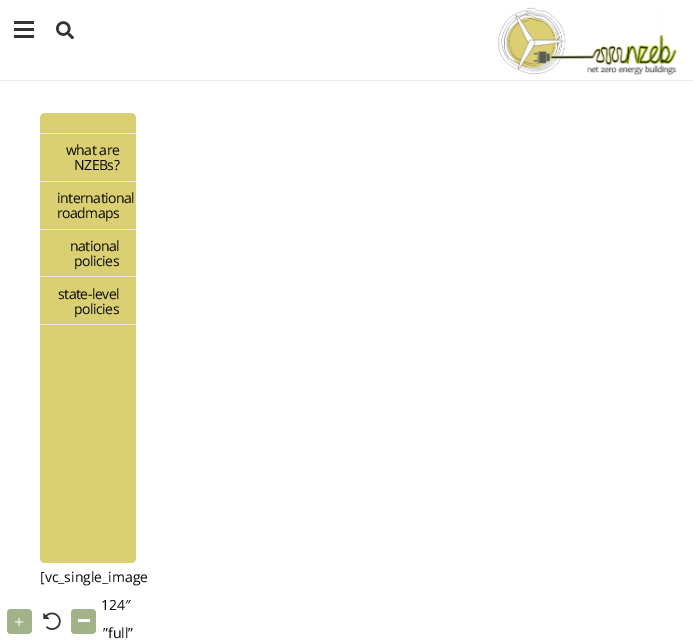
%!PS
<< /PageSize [693 641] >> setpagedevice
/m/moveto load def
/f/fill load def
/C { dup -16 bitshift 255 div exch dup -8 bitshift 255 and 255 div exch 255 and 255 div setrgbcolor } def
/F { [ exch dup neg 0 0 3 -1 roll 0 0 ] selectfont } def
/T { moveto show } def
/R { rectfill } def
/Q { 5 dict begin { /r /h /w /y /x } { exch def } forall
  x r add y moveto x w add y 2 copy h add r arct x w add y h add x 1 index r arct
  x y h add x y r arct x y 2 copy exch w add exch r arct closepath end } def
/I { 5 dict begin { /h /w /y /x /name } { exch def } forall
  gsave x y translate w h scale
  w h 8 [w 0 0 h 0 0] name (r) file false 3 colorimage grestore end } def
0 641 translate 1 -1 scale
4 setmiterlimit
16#FFFFFF C
0 0 693 641 R
16#EBEBEB C
0 80 693 1 R
(1.rgb) 498 7 180 68 I
16#333333 C
14 28 20 3 R
14 21 20 3 R
14 35 20 3 R
(2.rgb) 56 21 18 19 I
16#A3B389 C
7 609 25 25 4 Q f
/LiberationSerif-Regular 18 F
16#FFFFFF C
(+) 14 628 T
(3.rgb) 43 612 18 18 I
16#A3B389 C
71 609 25 25 4 Q f
16#FFFFFF C
78 619 12 3 R
16#DACF73 C
40 113 96 450 5 Q f
16#E8E8E8 C
40 324 96 1 R
40 133 96 1 R
/OpenSans-Regular 14 F
16#080808 C
66 155 m -.5 0 (what are) ashow
74 170 m -.5 0 (NZEBs?) ashow
16#E8E8E8 C
40 181 96 1 R
16#080808 C
57 203 m -.5 0 (international) ashow
57 218 m -.5 0 (roadmaps) ashow
16#E8E8E8 C
40 229 96 1 R
16#080808 C
70 251 m -.5 0 (national) ashow
74 266 m -.5 0 (policies) ashow
16#E8E8E8 C
40 276 96 1 R
16#080808 C
58 299 m -.5 0 (state-level) ashow
74 314 m -.5 0 (policies) ashow
([vc_single_image) 40 582 T
(124″) 101 610 T
(”full”) 103 638 T
showpage
